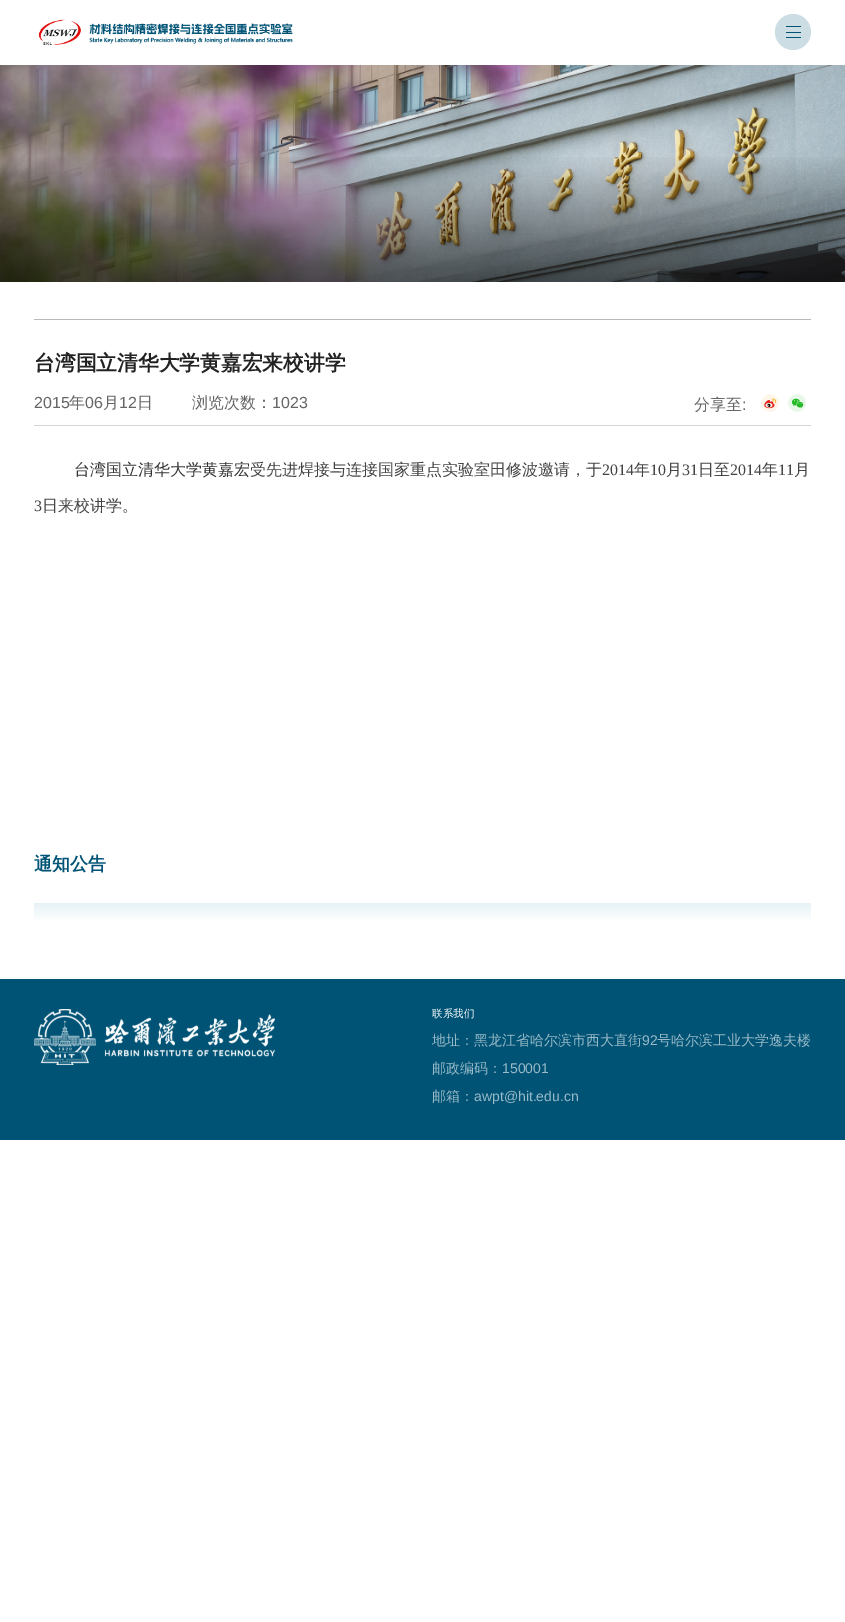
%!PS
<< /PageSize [845 1622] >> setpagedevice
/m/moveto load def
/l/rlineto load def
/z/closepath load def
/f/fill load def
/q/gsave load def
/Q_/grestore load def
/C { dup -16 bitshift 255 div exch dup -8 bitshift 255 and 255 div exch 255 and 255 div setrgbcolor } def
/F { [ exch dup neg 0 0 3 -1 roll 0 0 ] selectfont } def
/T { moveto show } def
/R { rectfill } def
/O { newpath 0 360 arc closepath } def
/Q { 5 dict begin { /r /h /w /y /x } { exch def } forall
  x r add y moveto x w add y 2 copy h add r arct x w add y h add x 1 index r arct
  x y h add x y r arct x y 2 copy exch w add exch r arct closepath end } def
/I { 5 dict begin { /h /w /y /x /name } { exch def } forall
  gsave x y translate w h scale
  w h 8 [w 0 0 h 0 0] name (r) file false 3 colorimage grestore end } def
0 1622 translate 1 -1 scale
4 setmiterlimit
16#FFFFFF C
0 0 845 1622 R
(1.rgb) 38 19 255 27 I
16#CCDDE3 C
793 32 18 O f
16#005375 C
786 26 15 1 .5 Q f
786 32 15 1 .5 Q f
786 37 15 1 .5 Q f
(2.rgb) 0 65 845 217 I
(3.rgb) 0 157 845 125 I
16#B9B9B9 C
34 319 777 1 R
/WenQuanYiZenHei-Bold 20.75 F
16#232222 C
(台湾国立清华大学黄嘉宏来校讲学) 34 370 T
16#D4D4D4 C
34 425 777 1 R
/LiberationSans-Regular 16 F
16#666666 C
(2015) 34 408 T
/WenQuanYiZenHei-Medium 16 F
(年) 69 408 T
/LiberationSans-Regular 16 F
(06) 85 408 T
/WenQuanYiZenHei-Medium 16 F
(月) 103 408 T
/LiberationSans-Regular 16 F
(12) 119 408 T
/WenQuanYiZenHei-Medium 16 F
(日) 137 408 T
(浏览次数：) 192 408 T
/LiberationSans-Regular 16 F
(1023) 272 408 T
/WenQuanYiZenHei-Medium 16 F
(分享至) 694 410 T
/LiberationSans-Regular 16 F
(:) 742 410 T
(4.rgb) 761 394 18 18 I
(5.rgb) 788 394 18 18 I
/WenQuanYiZenHei-Medium 16 F
16#333333 C
(台湾国立清华大学黄嘉宏) 74 475 T
16#444444 C
(受先进焊接与连接国家重点实验室田修波邀请，于) 250 475 T
/LiberationSerif-Regular 16 F
(2014) 602 475 T
/WenQuanYiZenHei-Medium 16 F
(年) 634 475 T
/LiberationSerif-Regular 16 F
(10) 650 475 T
/WenQuanYiZenHei-Medium 16 F
(月) 666 475 T
/LiberationSerif-Regular 16 F
(31) 682 475 T
/WenQuanYiZenHei-Medium 16 F
(日至) 698 475 T
/LiberationSerif-Regular 16 F
(2014) 730 475 T
/WenQuanYiZenHei-Medium 16 F
(年) 762 475 T
/LiberationSerif-Regular 16 F
(11) 778 475 T
/WenQuanYiZenHei-Medium 16 F
(月) 794 475 T
/LiberationSerif-Regular 16 F
(3) 34 511 T
/WenQuanYiZenHei-Medium 16 F
(日来校讲学。) 42 511 T
/WenQuanYiZenHei-Bold 18 F
16#005375 C
(通知公告) 34 870 T
q 34 903 m 777 0 l 0 17 l -777 0 l z clip newpath
<< /ShadingType 2 /ColorSpace /DeviceRGB /Coords [423 903 423 922] /Extend [true true] /Function << /FunctionType 2 /Domain [0 1] /C0 [.902 .949 .965] /C1 [1 1 1] /N 1 >> >> shfill Q_
0 979 845 161 R
(6.rgb) 34 1009 241 56 I
/WenQuanYiZenHei-Medium 10.5 F
16#FFFFFF C
(联系我们) 432 1017 T
/WenQuanYiZenHei-Medium 14 F
16#99BAC8 C
(地址：黑龙江省哈尔滨市西大直街) 432 1045 T
/LiberationSans-Regular 14 F
(92) 642 1045 T
/WenQuanYiZenHei-Medium 14 F
(号哈尔滨工业大学逸夫楼) 657 1045 T
(邮政编码：) 432 1073 T
/LiberationSans-Regular 14 F
(150001) 502 1073 T
/WenQuanYiZenHei-Medium 14 F
(邮箱：) 432 1101 T
/LiberationSans-Regular 14 F
(awpt@hit.edu.cn) 474 1101 T
showpage
